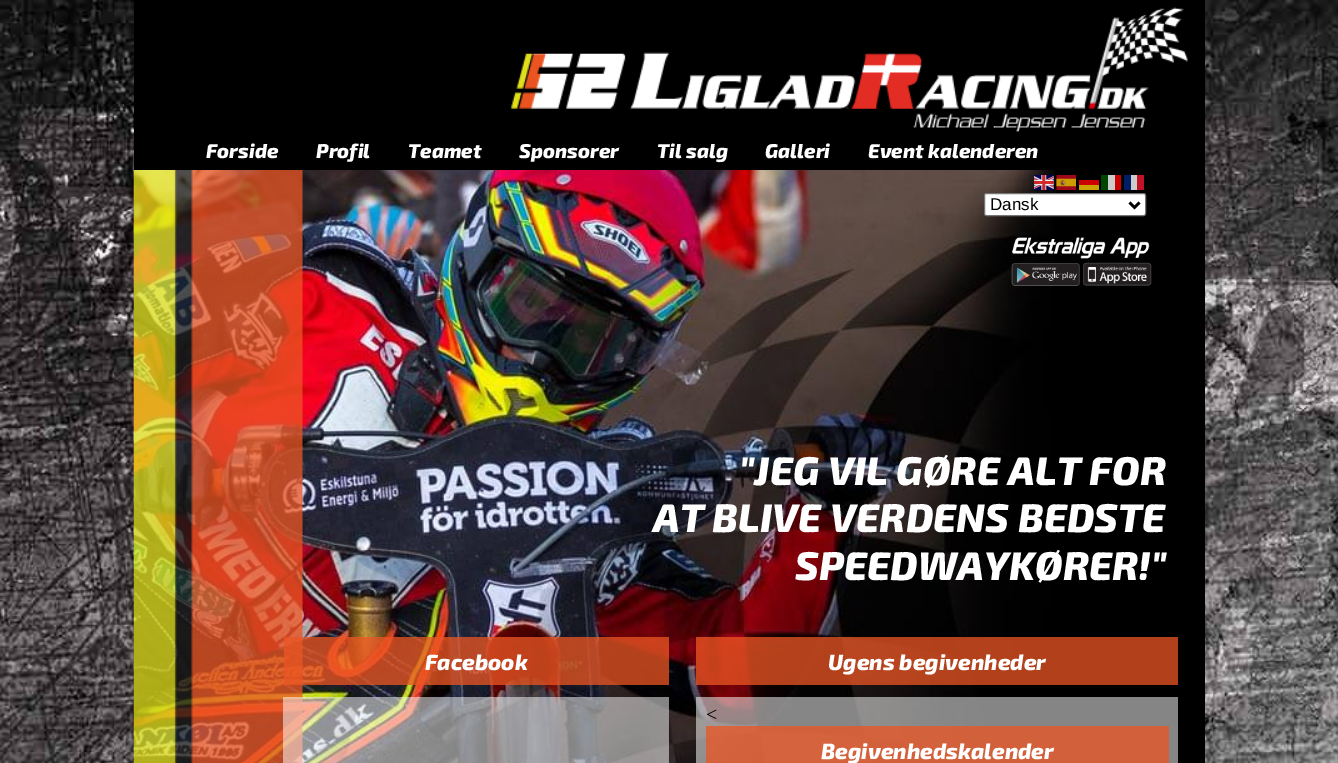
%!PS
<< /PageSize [1338 763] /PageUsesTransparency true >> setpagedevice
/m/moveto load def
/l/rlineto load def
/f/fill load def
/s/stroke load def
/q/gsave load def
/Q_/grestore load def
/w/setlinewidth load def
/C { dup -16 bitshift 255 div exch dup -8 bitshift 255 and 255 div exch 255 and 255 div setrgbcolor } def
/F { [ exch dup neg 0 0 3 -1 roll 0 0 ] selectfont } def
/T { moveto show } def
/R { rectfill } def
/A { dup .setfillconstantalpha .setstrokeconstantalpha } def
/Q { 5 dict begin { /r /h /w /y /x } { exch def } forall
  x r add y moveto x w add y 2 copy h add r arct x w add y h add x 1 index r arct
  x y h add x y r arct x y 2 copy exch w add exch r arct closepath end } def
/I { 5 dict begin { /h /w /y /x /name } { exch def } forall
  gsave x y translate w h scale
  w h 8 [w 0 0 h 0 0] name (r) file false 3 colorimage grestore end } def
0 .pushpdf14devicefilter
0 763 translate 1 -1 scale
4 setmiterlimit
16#FFFFFF C
0 0 1338 763 R
(1.rgb) 0 0 1338 763 I
16#000000 C
1056 170 149 593 R
(2.rgb) 133 150 923 613 I
134 0 1071 170 R
(3.rgb) 511 7 677 125 I
/Exo2-ExtraBoldItalic 20 F
16#FFFFFF C
(Forside) 206 158 T
(Profil) 316 158 T
(Teamet) 408 158 T
(Sponsorer) 519 158 T
(Til salg) 657 158 T
(Galleri) 765 158 T
(Event kalenderen) 868 158 T
(4.rgb) 133 170 170 593 I
(5.rgb) 1034 175 20 15 I
(6.rgb) 1056 175 20 15 I
16#CC0000 C
1079 180 20 5 R
16#004600 C
1101 175 7 15 R
16#CCCCCC C
1108 175 7 15 R
16#CA0000 C
1115 175 6 15 R
16#001E66 C
1124 175 7 15 R
16#CCCCCC C
1131 175 6 15 R
16#C21326 C
1137 175 7 15 R
16#CCA300 C
1079 185 20 5 R
16#FFFFFF C
984.5 193.5 161 22 2 Q q f Q_
16#767676 C
s
16#000000 C
2.5 w
1129.5 202.5 m 5 5 l 5 -5 l s
/LiberationSans-Regular 17 F
(Dansk) 990 210 T
(7.rgb) 1011 237 141 49 I
/Exo2-ExtraBoldItalic 40 F
16#FFFFFF C
("JEG VIL GØRE ALT FOR) 739 485 T
(AT BLIVE VERDENS BEDSTE) 653 532 T
(SPEEDWAYKØRER!") 795 580 T
0.76 A
16#EA5523 C
284 637 385 48 R
/Exo2-ExtraBoldItalic 22 F
1 A
16#FFFFFF C
(Facebook) 425 670 T
0.52 A
283 697 386 66 R
0.76 A
16#EA5523 C
696 637 482 48 R
1 A
16#FFFFFF C
(Ugens begivenheder) 828 670 T
0.52 A
696 697 482 66 R
/LiberationSerif-Regular 20 F
1 A
16#000000 C
(<) 706 721 T
0.76 A
16#EA5523 C
706 726 463 37 R
/Exo2-ExtraBoldItalic 22 F
1 A
16#FFFFFF C
(Begivenhedskalender) 821 759 T
.poppdf14devicefilter showpage
